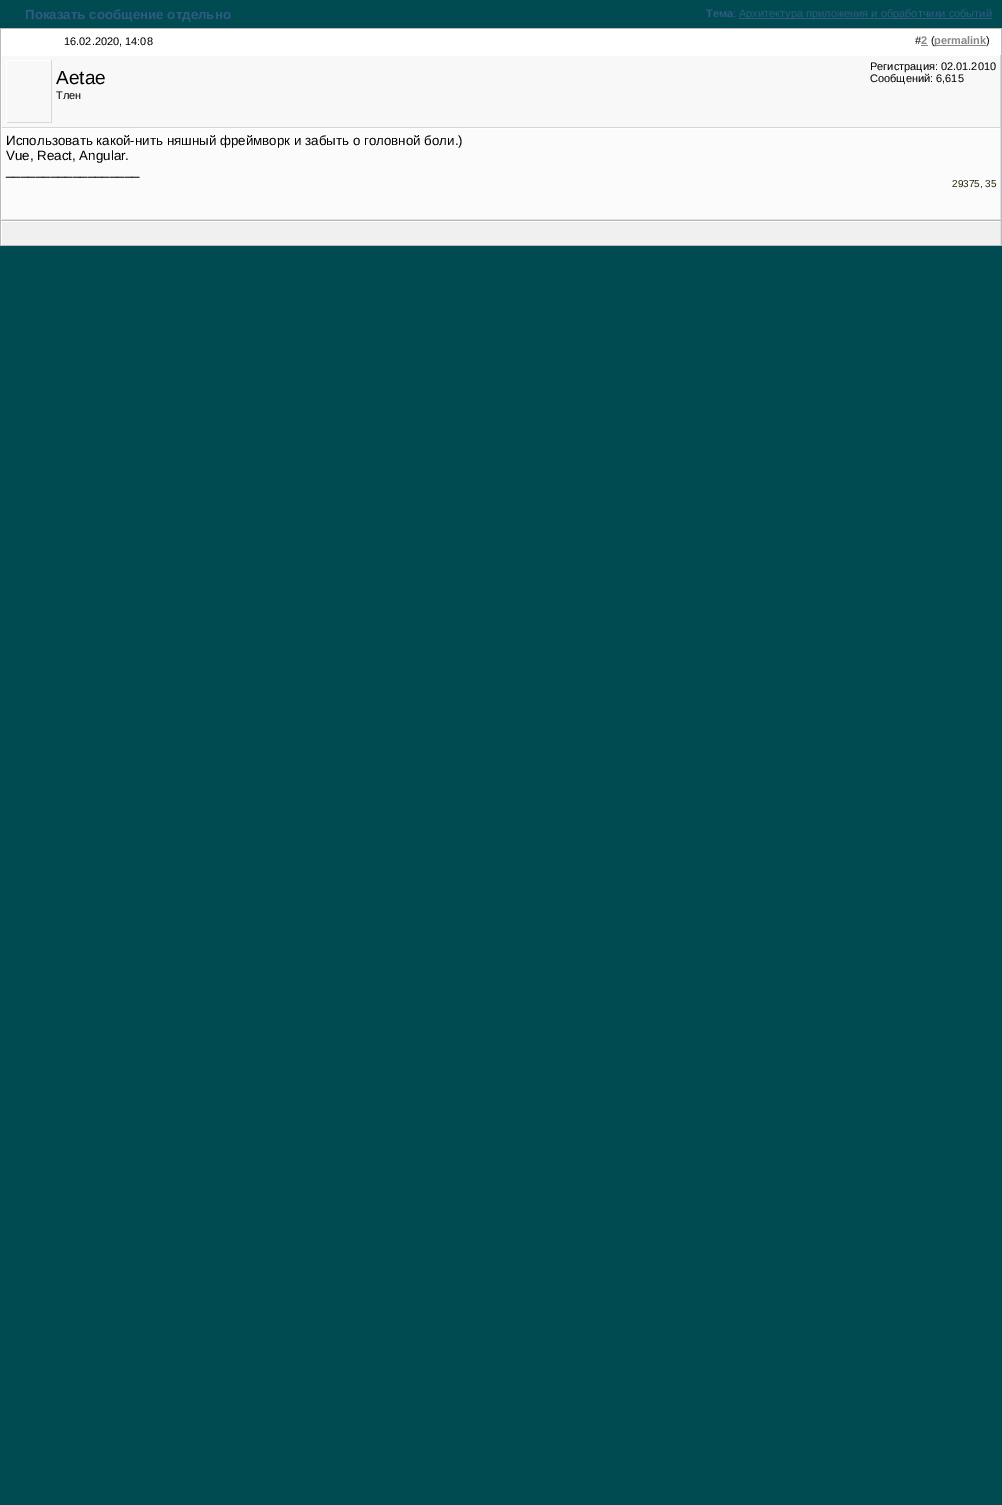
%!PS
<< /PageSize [1002 1505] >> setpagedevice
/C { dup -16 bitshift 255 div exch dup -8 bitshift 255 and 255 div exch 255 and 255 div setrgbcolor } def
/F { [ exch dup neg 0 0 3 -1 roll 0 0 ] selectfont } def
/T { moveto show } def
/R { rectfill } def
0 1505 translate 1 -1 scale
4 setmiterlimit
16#004B52 C
0 0 1002 1505 R
/LiberationSans-Bold 13.35 F
16#2E5B82 C
(Показать сообщение отдельно) 25 19 T
/LiberationSans-Bold 11 F
(Тема) 706 17 T
/LiberationSans-Regular 11 F
(:) 733 17 T
739 18 253 1 R
(Архитектура приложения и обработчики событий) 739 17 T
16#BBBBBB C
.5 28.5 1001 192 rectstroke
16#FFFFFF C
1 29 1000 27 R
16#000000 C
(16.02.2020, 14:08) 64 45 T
(#) 915 44 T
/LiberationSans-Bold 11 F
16#888888 C
(2) 921 44 T
921 45 7 1 R
/LiberationSans-Regular 11 F
16#000000 C
(\() 931 44 T
16#888888 C
934 45 52 1 R
/LiberationSans-Bold 11 F
(permalink) 934 44 T
/LiberationSans-Regular 11 F
16#000000 C
(\)) 986 44 T
16#F8F8F8 C
2 56 998 71 R
16#D7D7D7 C
1000 55 1 73 R
1 127 1000 1 R
16#FFFFFF C
1 55 1 73 R
6 60 46 1 R
16#D7D7D7 C
51 60 1 63 R
6 122 46 1 R
16#FFFFFF C
6 60 1 63 R
/LiberationSans-Regular 19 F
16#000000 C
(Aetae) 56 84 T
/LiberationSans-Regular 11 F
(Тлен) 56 99 T
(Регистрация: 02.01.2010) 870 70 T
(Сообщений: 6,615) 870 82 T
16#FBFBFB C
2 129 998 90 R
16#FFFFFF C
1 128 1000 1 R
16#E0E0E0 C
1000 128 1 92 R
1 219 1000 1 R
16#FFFFFF C
1 128 1 92 R
/LiberationSans-Regular 13.35 F
16#000000 C
(Использовать какой-нить няшный фреймворк и забыть о головной боли.\)) 6 145 T
(Vue, React, Angular.) 6 160 T
(__________________) 6 175 T
/LiberationSans-Regular 10 F
16#222200 C
(29375, 35) 952 187 T
16#BBBBBB C
1001 221 1 25 R
0 245 1002 1 R
0 221 1 25 R
16#F0F0F0 C
2 222 998 23 R
16#FFFFFF C
1 221 1000 1 R
16#E0E0E0 C
1000 221 1 24 R
16#FFFFFF C
1 221 1 24 R
showpage
